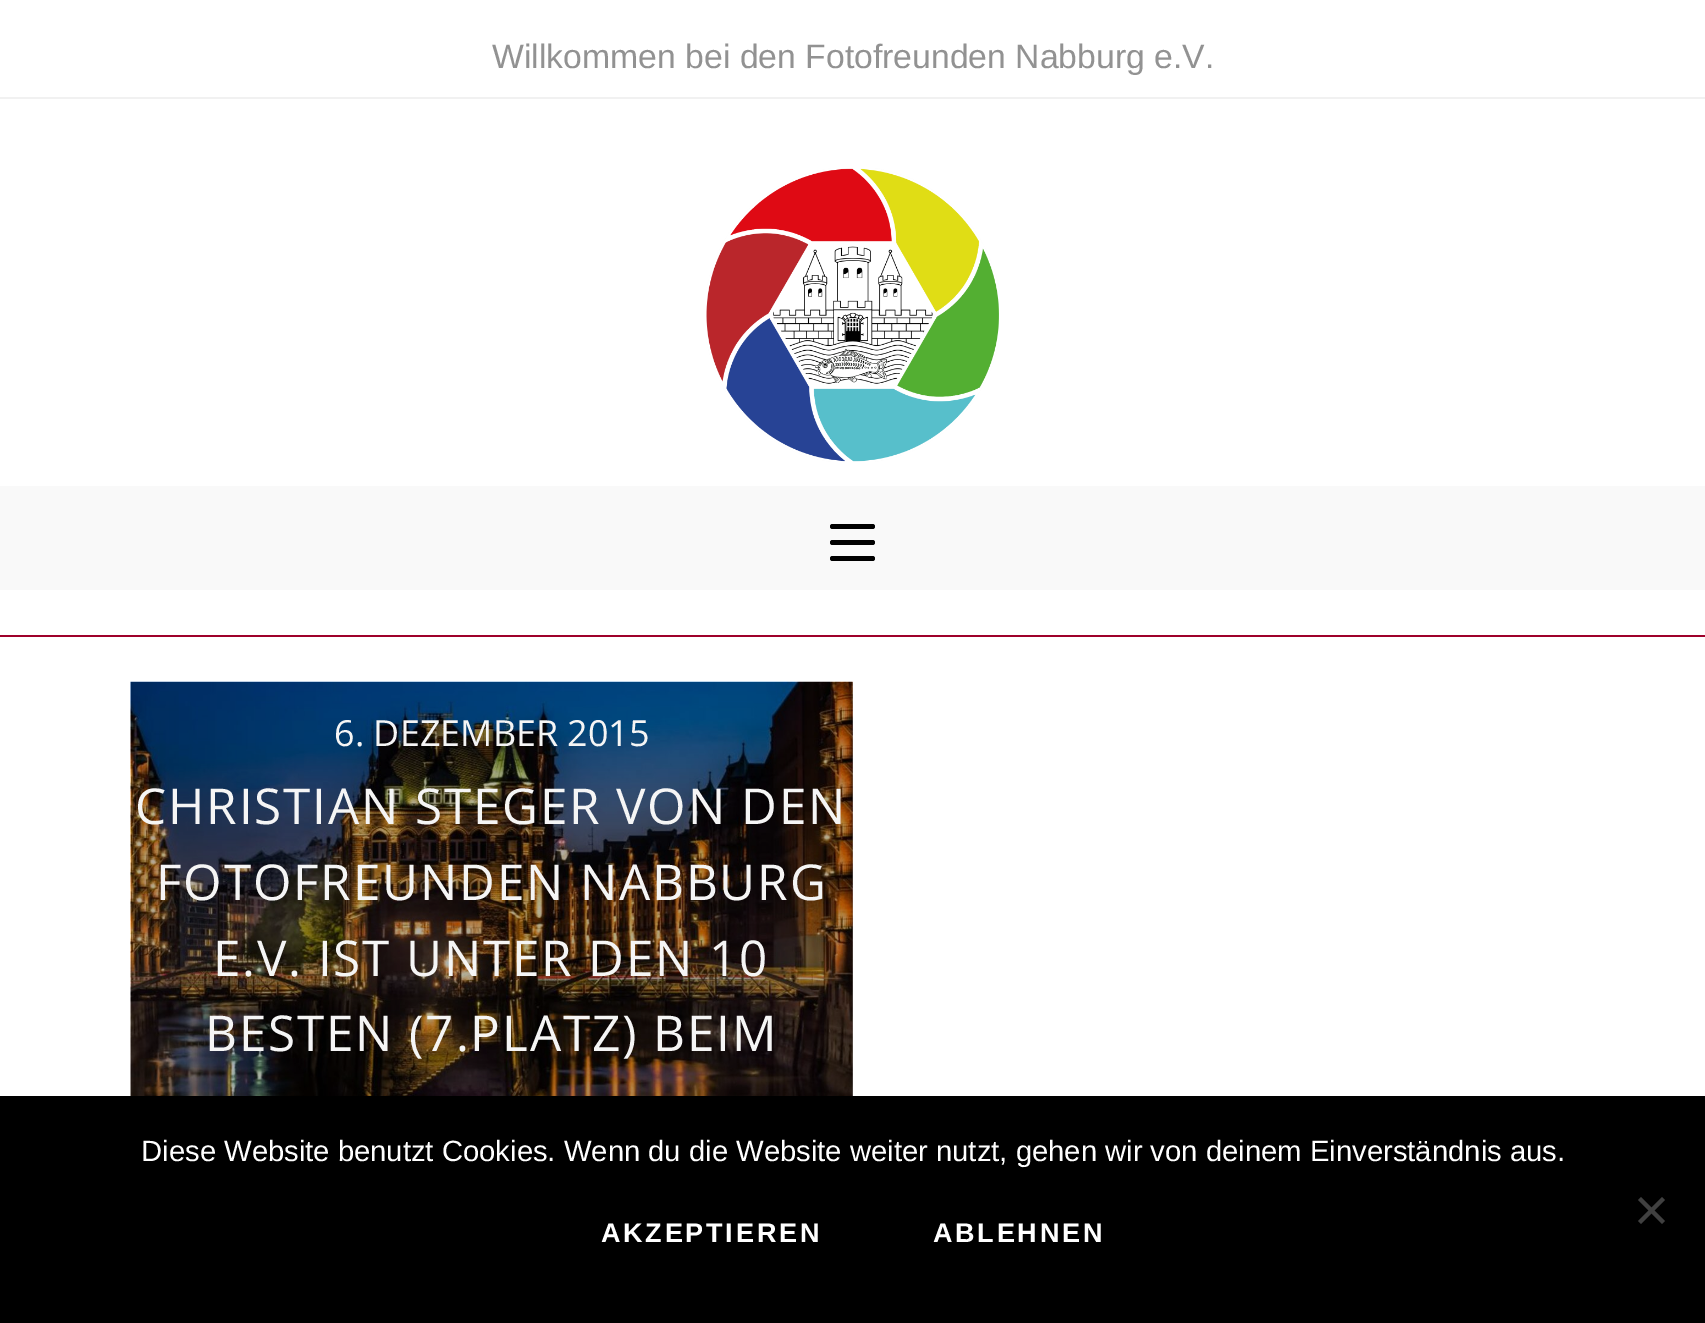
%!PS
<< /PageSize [1705 1323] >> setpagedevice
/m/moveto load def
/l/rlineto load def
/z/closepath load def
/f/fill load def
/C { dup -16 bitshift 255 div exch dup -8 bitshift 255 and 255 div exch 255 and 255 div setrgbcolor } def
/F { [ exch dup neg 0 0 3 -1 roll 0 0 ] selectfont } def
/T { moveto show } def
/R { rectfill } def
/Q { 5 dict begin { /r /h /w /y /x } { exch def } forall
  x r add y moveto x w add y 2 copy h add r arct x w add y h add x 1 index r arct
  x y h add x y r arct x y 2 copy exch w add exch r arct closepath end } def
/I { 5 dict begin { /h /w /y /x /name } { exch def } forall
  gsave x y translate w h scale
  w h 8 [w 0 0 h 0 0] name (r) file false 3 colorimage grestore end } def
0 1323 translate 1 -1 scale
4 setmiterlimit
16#FFFFFF C
0 0 1705 1323 R
16#F1F1F1 C
0 97 1705 2 R
/LiberationSans-Regular 33.75 F
16#929292 C
(Willkommen bei den Fotofreunden Nabburg e.V.) 492 68 T
16#9E002A C
0 635 1705 2 R
(1.rgb) 706 168 293 294 I
16#F9F9F9 C
0 486 1705 104 R
16#000000 C
830 540 45 5 2.5 Q f
830 524 45 5 2.5 Q f
830 556 45 5 2.5 Q f
(2.rgb) 130 681 723 415 I
/OpenSans-Regular 36 F
16#F5F5F5 C
(6. DEZEMBER 2015) 334 746 T
/OpenSans-Regular 49.5 F
135 824 m 1.8 0 (CHRISTIAN STEGER VON DEN) ashow
156 900 m 1.8 0 (FOTOFREUNDEN NABBURG) ashow
213 976 m 1.8 0 (E.V. IST UNTER DEN 10) ashow
205 1051 m 1.8 0 (BESTEN \(7.PLATZ\) BEIM) ashow
16#000000 C
0 1096 1705 227 R
/LiberationSans-Regular 29.25 F
16#FFFFFF C
(Diese Website benutzt Cookies. Wenn du die Website weiter nutzt, gehen wir von deinem Einverständnis aus.) 141 1161 T
16#404040 C
1662 1197 m 3 3 l -24 24 l -3 -3 l z f
1638 1200 m 3 -3 l 24 24 l -3 3 l z f
/LiberationSans-Bold 27 F
16#FFFFFF C
601 1242 m 2.75 0 (AKZEPTIEREN) ashow
933 1242 m 2.75 0 (ABLEHNEN) ashow
showpage
